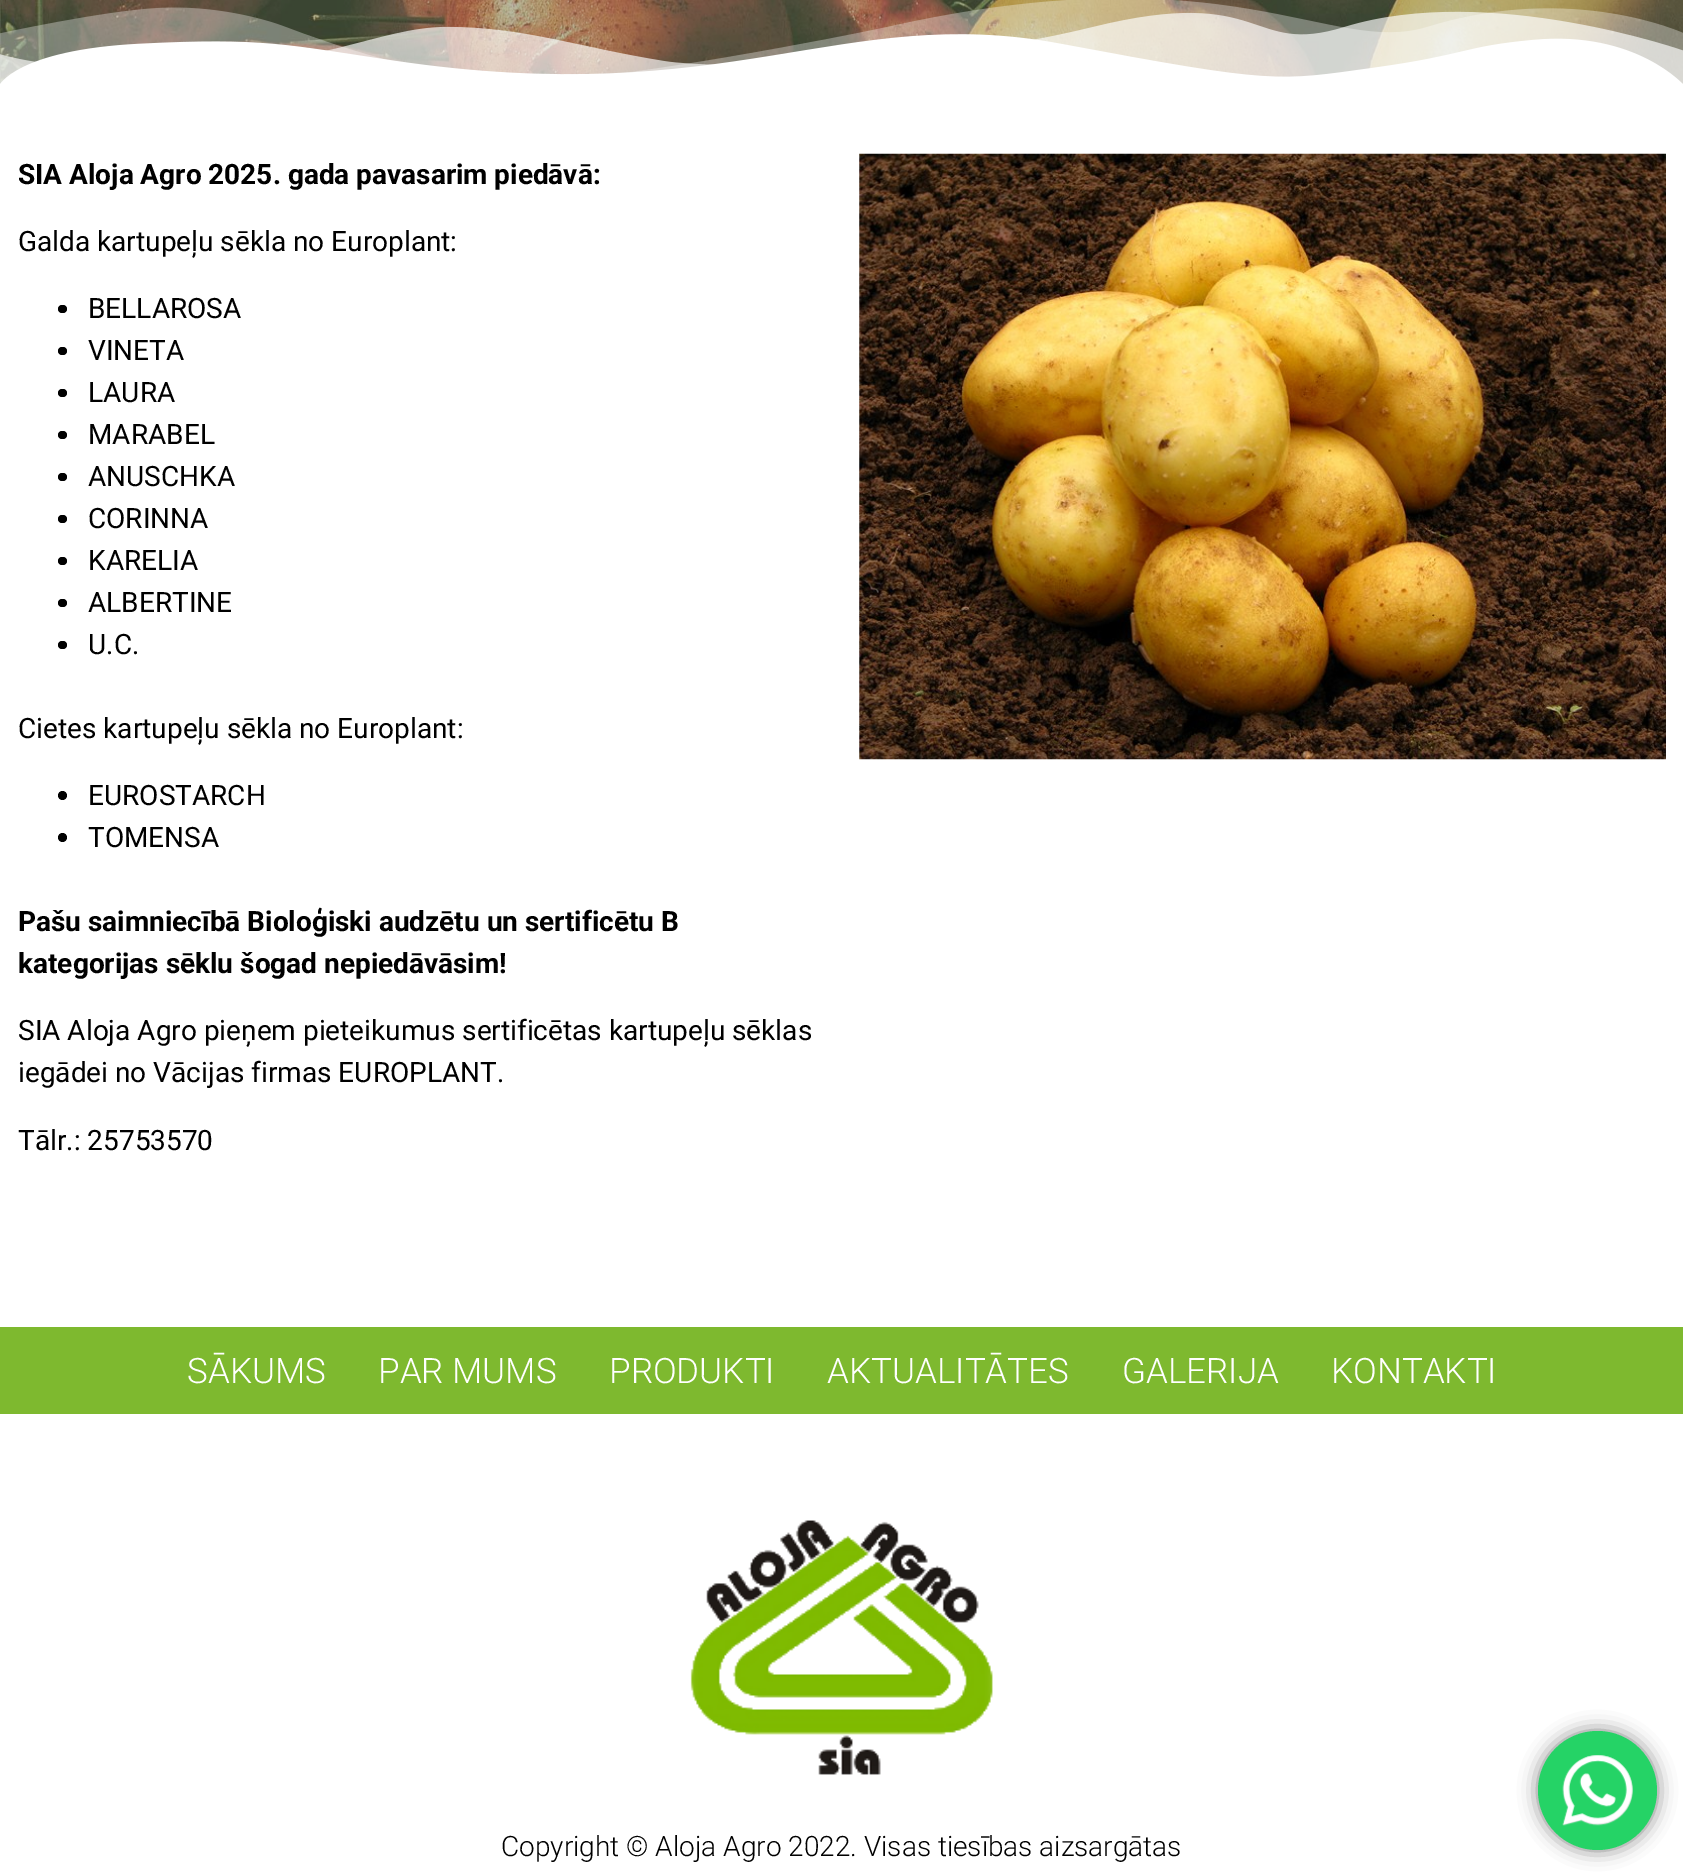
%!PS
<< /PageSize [1683 1875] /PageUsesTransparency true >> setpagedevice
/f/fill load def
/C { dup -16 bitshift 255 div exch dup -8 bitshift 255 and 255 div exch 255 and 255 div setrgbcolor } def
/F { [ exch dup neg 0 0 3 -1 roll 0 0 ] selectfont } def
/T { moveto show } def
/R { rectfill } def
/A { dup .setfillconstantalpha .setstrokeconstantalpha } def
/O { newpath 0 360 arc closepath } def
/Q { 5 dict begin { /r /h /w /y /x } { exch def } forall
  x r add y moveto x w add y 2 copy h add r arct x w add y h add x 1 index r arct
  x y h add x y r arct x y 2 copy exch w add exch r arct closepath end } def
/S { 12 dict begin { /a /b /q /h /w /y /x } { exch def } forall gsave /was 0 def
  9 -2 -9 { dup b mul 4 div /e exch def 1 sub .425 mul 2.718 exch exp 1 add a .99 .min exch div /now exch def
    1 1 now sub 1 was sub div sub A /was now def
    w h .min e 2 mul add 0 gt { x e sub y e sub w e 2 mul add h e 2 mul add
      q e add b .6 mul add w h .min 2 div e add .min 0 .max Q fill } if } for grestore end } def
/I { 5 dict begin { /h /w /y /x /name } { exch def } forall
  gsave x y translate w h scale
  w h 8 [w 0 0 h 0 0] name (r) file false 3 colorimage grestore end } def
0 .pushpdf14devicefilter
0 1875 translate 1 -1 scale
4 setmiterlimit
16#FFFFFF C
0 0 1683 1875 R
(1.rgb) 0 0 1683 84 I
(2.rgb) 0 0 1683 84 I
/Roboto-Bold 28 F
16#000000 C
(SIA Aloja Agro 2025. gada pavasarim piedāvā:) 18 184 T
/Roboto-Regular 28 F
(Galda kartupeļu sēkla no Europlant:) 18 251 T
58 305 9 8 4 Q f
(BELLAROSA) 88 318 T
58 347 9 8 4 Q f
(VINETA) 88 360 T
58 389 9 8 4 Q f
(LAURA) 88 402 T
58 431 9 8 4 Q f
(MARABEL) 88 444 T
58 473 9 8 4 Q f
(ANUSCHKA) 88 486 T
58 515 9 8 4 Q f
(CORINNA) 88 528 T
58 557 9 8 4 Q f
(KARELIA) 88 570 T
58 599 9 8 4 Q f
(ALBERTINE) 88 612 T
58 641 9 8 4 Q f
(U.C.) 88 654 T
(Cietes kartupeļu sēkla no Europlant:) 18 738 T
62.5 795.5 4.5 O f
(EUROSTARCH) 88 805 T
62.5 837.5 4.5 O f
(TOMENSA) 88 847 T
/Roboto-Bold 28 F
(Pašu saimniecībā Bioloģiski audzētu un sertificētu B) 18 931 T
(kategorijas sēklu šogad nepiedāvāsim!) 18 973 T
/Roboto-Regular 28 F
(SIA Aloja Agro pieņem pieteikumus sertificētas kartupeļu sēklas) 18 1040 T
(iegādei no Vācijas firmas EUROPLANT.) 18 1082 T
(Tālr.: 25753570) 18 1150 T
(3.rgb) 859 153 807 607 I
16#7EB92F C
0 1327 1683 87 R
/Roboto-Light 35 F
16#FFFFFF C
(SĀKUMS) 187 1383 T
(PAR MUMS) 378 1383 T
(PRODUKTI) 609 1383 T
(AKTUALITĀTES) 827 1383 T
(GALERIJA) 1122 1383 T
(KONTAKTI) 1331 1383 T
(4.rgb) 690 1520 303 255 I
/Roboto-Light 28 F
16#000000 C
(Copyright © Aloja Agro 2022. Visas tiesības aizsargātas) 501 1856 T
1538 1731 119 119 59.5 9.5 .5 S
16#25D366 C
1597.5 1790.5 59.5 O f
(5.rgb) 1562 1755 71 71 I
.poppdf14devicefilter showpage
